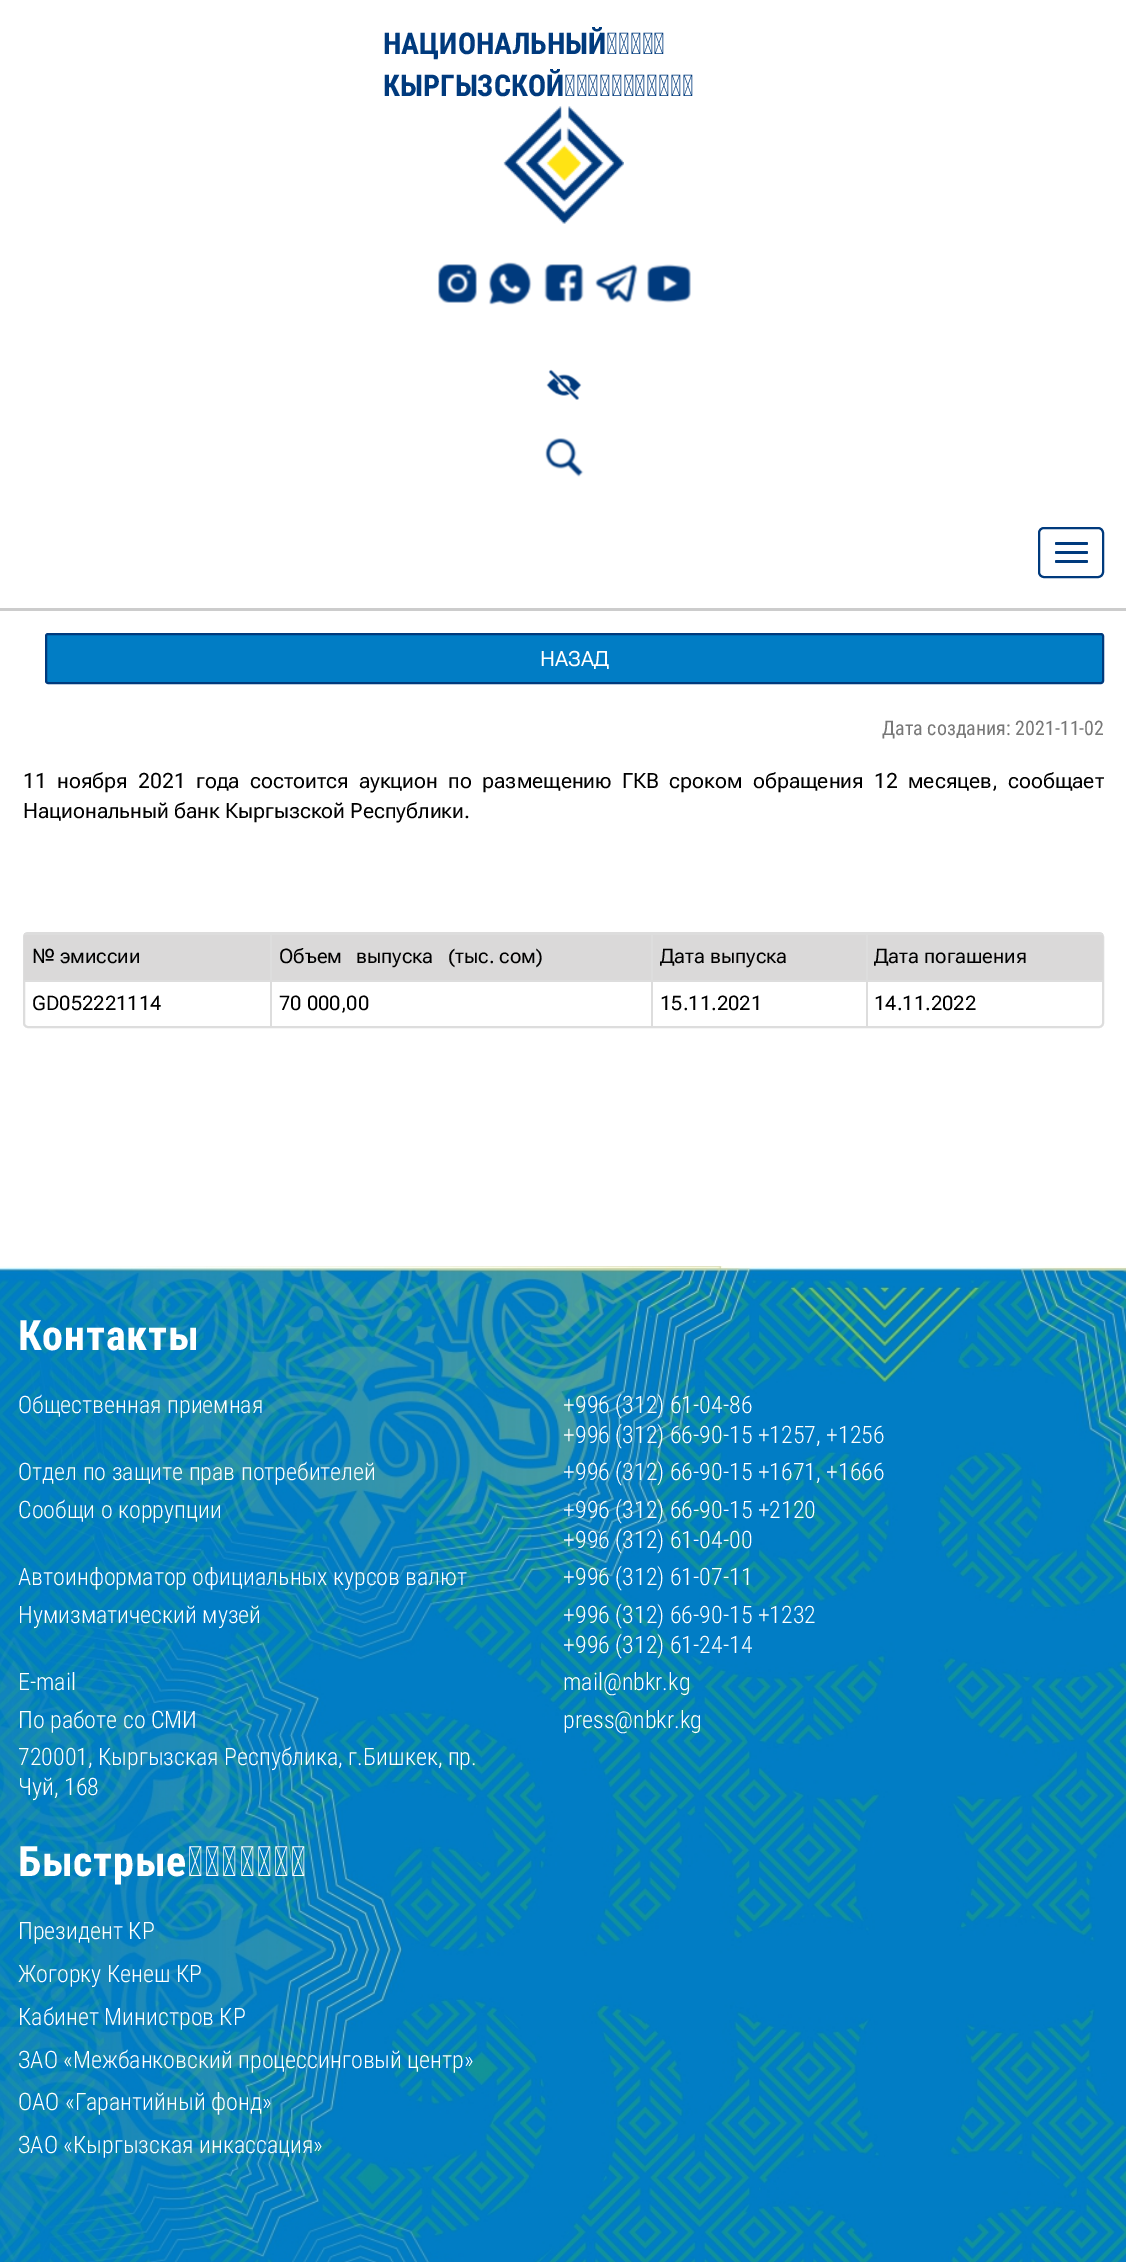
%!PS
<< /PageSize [1126 2262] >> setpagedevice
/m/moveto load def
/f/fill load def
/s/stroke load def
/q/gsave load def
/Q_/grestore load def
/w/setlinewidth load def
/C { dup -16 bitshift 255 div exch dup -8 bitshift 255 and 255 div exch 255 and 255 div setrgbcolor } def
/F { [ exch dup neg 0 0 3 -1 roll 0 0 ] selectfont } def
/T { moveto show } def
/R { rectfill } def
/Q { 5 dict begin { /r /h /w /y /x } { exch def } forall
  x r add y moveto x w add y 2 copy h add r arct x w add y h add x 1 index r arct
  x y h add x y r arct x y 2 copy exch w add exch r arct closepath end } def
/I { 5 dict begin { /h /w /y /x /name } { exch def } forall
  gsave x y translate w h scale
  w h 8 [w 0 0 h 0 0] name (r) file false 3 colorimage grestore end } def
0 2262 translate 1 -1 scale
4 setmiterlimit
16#FFFFFF C
0 0 1126 2262 R
/RobotoCondensed-Bold 30 F
16#003A7D C
(НАЦИОНАЛЬНЫЙ БАНК) 383 54 T
(КЫРГЫЗСКОЙ РЕСПУБЛИКИ) 383 96 T
(1.rgb) 503 106 121 118 I
(2.rgb) 438 264 39 39 I
(3.rgb) 488 262 44 43 I
(4.rgb) 544 264 40 38 I
(5.rgb) 595 264 43 39 I
(6.rgb) 647 264 44 39 I
(7.rgb) 546 369 36 31 I
(8.rgb) 545 438 39 39 I
16#CCCCCC C
0 608 1126 3 R
16#003A7D C
2 w
1039 528 64 49 5 Q s
1055 542 33 3 1.5 Q f
1055 551 33 3 1.5 Q f
1055 560 33 3 1.5 Q f
16#017DC5 C
46 634 1057 49 2 Q q f Q_
16#003A7D C
s
/RobotoFlex-Regular 21 F
16#FFFFFF C
(НАЗАД) 540 666 T
/RobotoCondensed-Regular 20 F
16#787878 C
(Дата создания: 2021-11-02) 882 735 T
/RobotoFlex-Regular 21 F
16#000000 C
23 788 m 5.25 0 32 (11 ноября 2021 года состоится аукцион по размещению ГКВ сроком обращения 12 месяцев, сообщает) widthshow
(Национальный банк Кыргызской Республики.) 23 818 T
16#DDDDDD C
24 933 1079 94 4 Q s
16#DAD9D9 C
24 935 246 45 R
q
24 933 1079 93 3 Q clip newpath
16#DDDDDD C
866 933 237 2 R
Q_
16#DDDDDD C
866 980 237 2 R
866 980 2 46 R
651 980 216 2 R
866 933 2 48 R
651 934 216 1 R
651 980 2 46 R
270 980 383 2 R
651 933 2 48 R
270 934 383 1 R
270 980 2 46 R
24 980 248 2 R
270 933 2 48 R
q
24 933 1079 93 3 Q clip newpath
24 933 248 2 R
Q_
/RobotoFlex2-Regular 20 F
16#000000 C
(№ эмиссии) 32 963 T
16#DAD9D9 C
272 935 379 45 R
16#000000 C
(Объем) 279 963 T
(выпуска) 356 963 T
(\(тыс. сом\)) 448 963 T
16#DAD9D9 C
653 935 213 45 R
16#000000 C
(Дата выпуска) 660 963 T
16#DAD9D9 C
868 935 235 45 R
16#000000 C
(Дата погашения) 874 963 T
(GD052221114) 32 1010 T
(70 000,00) 279 1010 T
(15.11.2021) 660 1010 T
(14.11.2022) 874 1010 T
(9.rgb) 0 1266 1126 996 I
/RobotoCondensed-Bold 42 F
16#FFFFFF C
18 1350 m .75 0 (Контакты) ashow
/RobotoCondensed-Light 24 F
(Общественная приемная) 18 1413 T
(+996 \(312\) 61-04-86) 563 1413 T
(+996 \(312\) 66-90-15 +1257, +1256) 563 1443 T
(Отдел по защите прав потребителей) 18 1480 T
(+996 \(312\) 66-90-15 +1671, +1666) 563 1480 T
(Сообщи о коррупции) 18 1518 T
(+996 \(312\) 66-90-15 +2120) 563 1518 T
(+996 \(312\) 61-04-00) 563 1548 T
(Автоинформатор официальных курсов валют) 18 1585 T
(+996 \(312\) 61-07-11) 563 1585 T
(Нумизматический музей) 18 1623 T
(+996 \(312\) 66-90-15 +1232) 563 1623 T
(+996 \(312\) 61-24-14) 563 1653 T
(E-mail) 18 1690 T
(mail@nbkr.kg) 563 1690 T
(По работе со СМИ) 18 1728 T
(press@nbkr.kg) 563 1728 T
(720001, Кыргызская Республика, г.Бишкек, пр.) 18 1765 T
(Чуй, 168) 18 1795 T
/RobotoCondensed-Bold 42 F
18 1876 m .75 0 (Быстрые ссылки) ashow
/RobotoCondensed-Light 24 F
(Президент КР) 18 1939 T
(Жогорку Кенеш КР) 18 1982 T
(Кабинет Министров КР) 18 2025 T
(ЗАО «Межбанковский процессинговый центр») 18 2068 T
(ОАО «Гарантийный фонд») 18 2110 T
(ЗАО «Кыргызская инкассация») 18 2153 T
showpage
